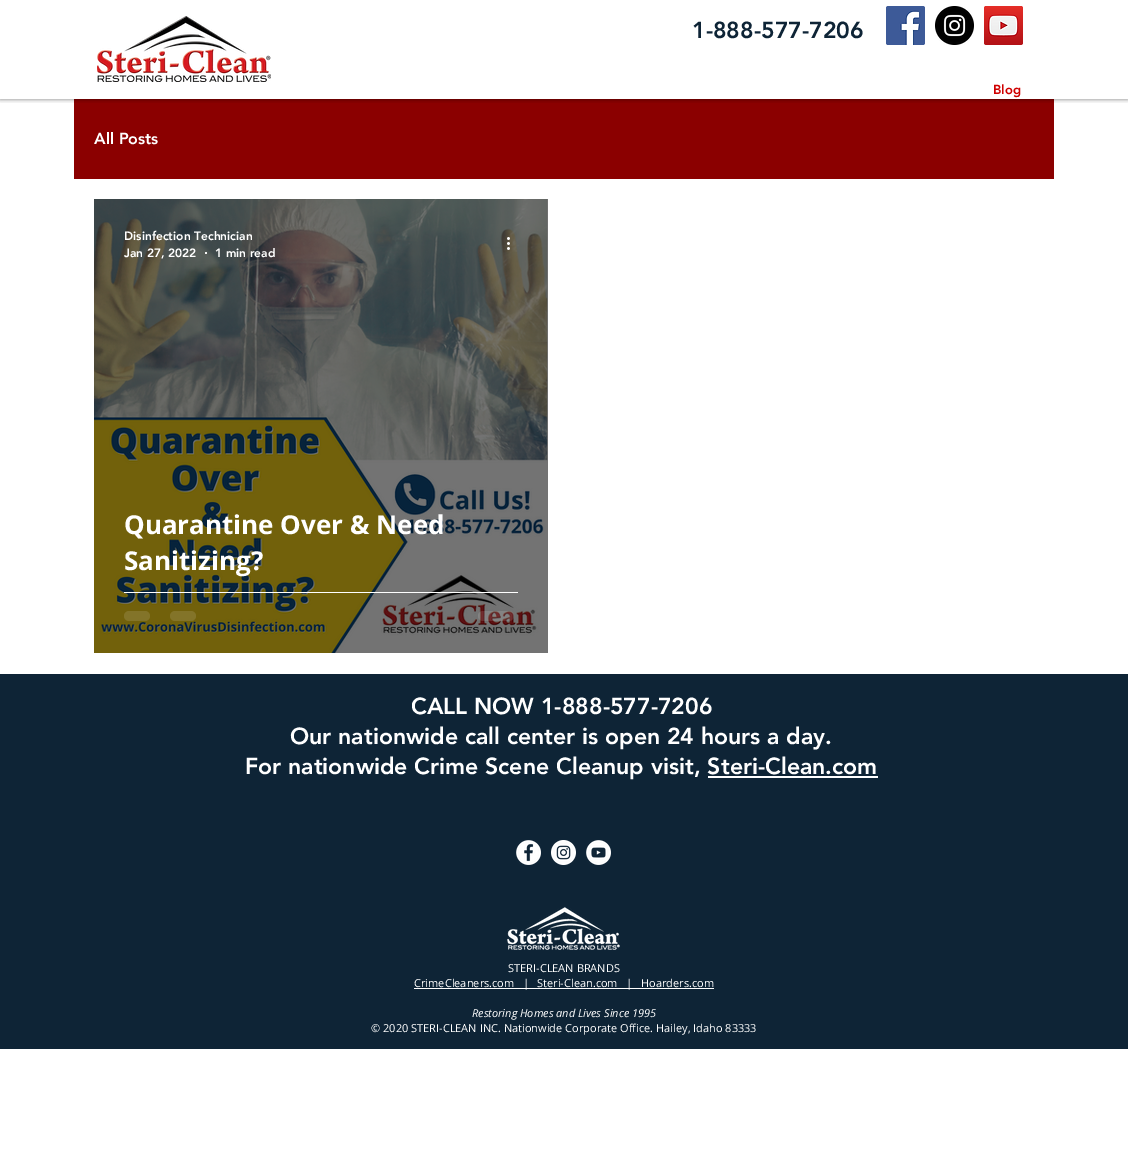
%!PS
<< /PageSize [1128 1152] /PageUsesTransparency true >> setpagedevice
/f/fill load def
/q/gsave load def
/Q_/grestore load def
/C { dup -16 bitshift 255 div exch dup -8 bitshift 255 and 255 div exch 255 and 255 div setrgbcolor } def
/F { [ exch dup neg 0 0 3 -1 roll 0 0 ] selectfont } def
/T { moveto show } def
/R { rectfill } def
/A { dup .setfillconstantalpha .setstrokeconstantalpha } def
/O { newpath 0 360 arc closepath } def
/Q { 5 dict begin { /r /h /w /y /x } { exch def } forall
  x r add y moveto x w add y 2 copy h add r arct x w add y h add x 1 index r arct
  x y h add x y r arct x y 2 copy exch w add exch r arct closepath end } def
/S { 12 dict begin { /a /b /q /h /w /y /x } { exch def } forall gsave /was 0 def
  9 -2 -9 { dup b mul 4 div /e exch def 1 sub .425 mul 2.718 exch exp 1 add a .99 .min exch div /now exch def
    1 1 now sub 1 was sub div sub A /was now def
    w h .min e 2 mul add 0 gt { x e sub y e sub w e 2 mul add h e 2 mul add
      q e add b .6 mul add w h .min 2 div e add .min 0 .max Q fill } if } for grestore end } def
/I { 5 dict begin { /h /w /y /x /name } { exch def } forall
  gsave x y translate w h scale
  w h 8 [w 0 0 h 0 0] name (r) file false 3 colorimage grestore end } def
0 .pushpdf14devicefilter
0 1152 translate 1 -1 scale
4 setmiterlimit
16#FFFFFF C
0 0 1128 1152 R
16#8B0000 C
74 99 980 80 R
q
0 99 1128 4 rectclip
16#000000 C
0 0 1128 99 0 2.5 .5 S
Q_
(1.rgb) 97 16 174 66 I
/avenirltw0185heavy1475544-Black 23 F
16#0E2436 C
(1-888-577-7206) 692 38 T
(2.rgb) 886 6 39 39 I
(3.rgb) 935 6 39 39 I
(4.rgb) 984 6 39 39 I
/avenirltw0185heavy1475544-Black 13 F
16#CF0000 C
(Blog) 993 94 T
/avenirltw0185heavy1475544-Black 16 F
16#FFFFFF C
(All Posts) 94 144 T
(5.rgb) 94 199 454 454 I
/avenirltw0185heavy1475544-Black 12 F
(Disinfection Technician) 124 240 T
(Jan 27, 2022) 124 257 T
206 253 1 O f
(1 min read) 215 257 T
(6.rgb) 507 237 3 13 I
/OpenSans-Bold 26 F
(Quarantine Over & Need) 124 534 T
(Sanitizing?) 124 570 T
124 592 394 1 R
0.12 A
124 611 26 10 5 Q f
170 611 26 10 5 Q f
478 611 36 10 5 Q f
1 A
16#0E2436 C
0 674 1128 375 R
/avenirltw0185heavy1475544-Black 23 F
16#FFFFFF C
(CALL NOW 1-888-577-7206) 411 714 T
(Our nationwide call center is open 24 hours a day.) 290 744 T
(For nationwide Crime Scene Cleanup visit, Steri-Clean.com) 245 774 T
708 776 170 2 R
(7.rgb) 516 840 25 25 I
(8.rgb) 551 840 25 25 I
(9.rgb) 586 840 25 25 I
(10.rgb) 507 907 113 43 I
/OpenSans-Regular 11 F
(STERI-CLEAN BRANDS) 508 972 T
414 988 300 1 R
(CrimeCleaners.com   |) 414 987 T
(Steri-Clean.com   |) 537 987 T
(Hoarders.com) 641 987 T
/OpenSans-Italic 11 F
(Restoring Homes and Lives Since 1995) 472 1017 T
/OpenSans-Regular 11 F
(© 2020 STERI-CLEAN INC. Nationwide Corporate Office. Hailey, Idaho 83333) 371 1032 T
.poppdf14devicefilter showpage
